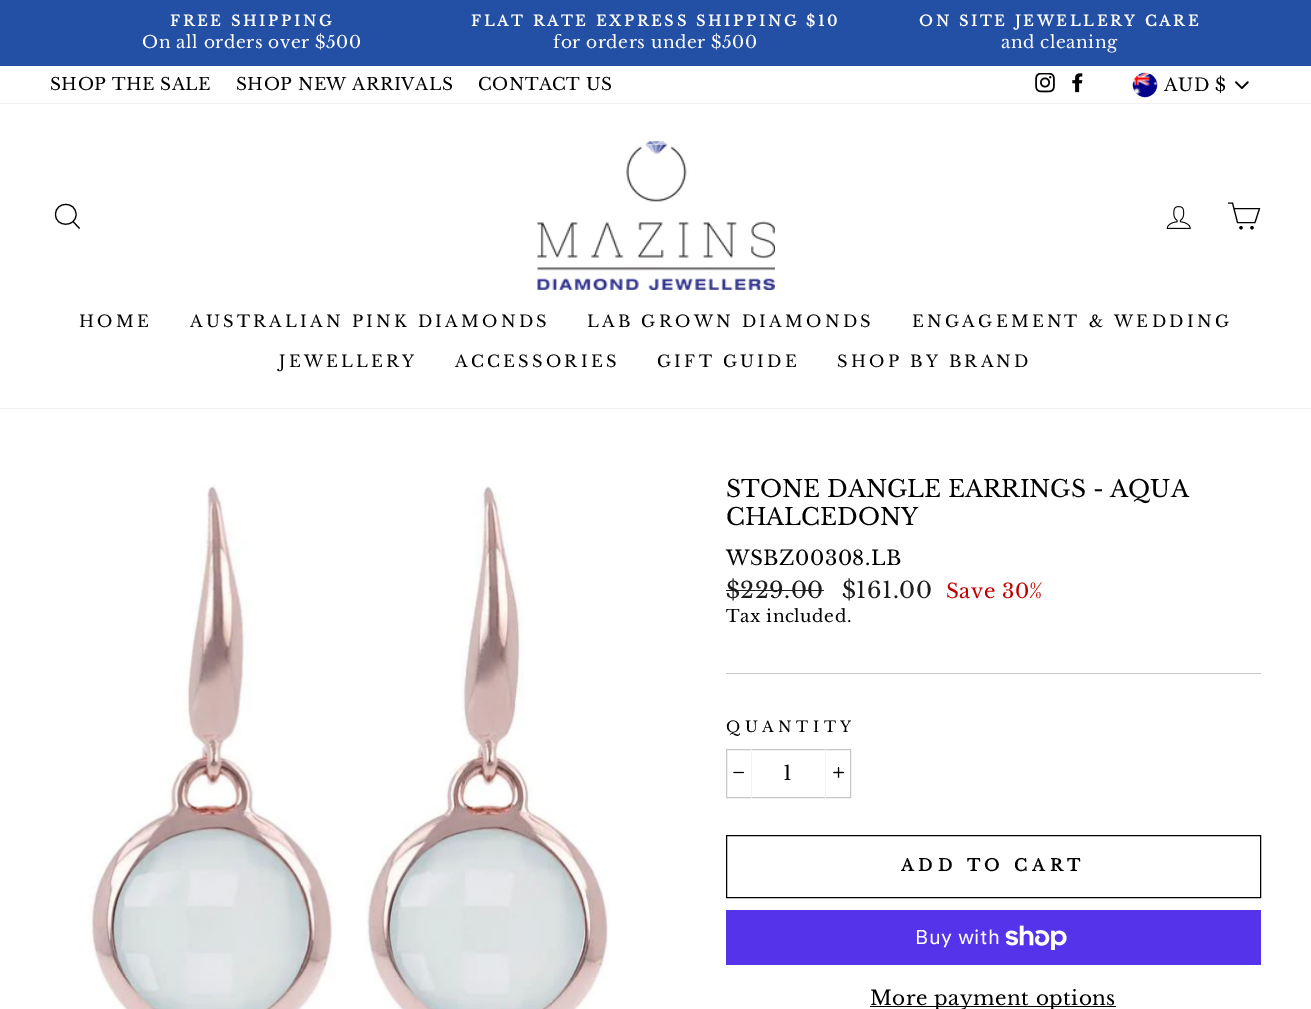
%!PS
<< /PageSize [1311 1009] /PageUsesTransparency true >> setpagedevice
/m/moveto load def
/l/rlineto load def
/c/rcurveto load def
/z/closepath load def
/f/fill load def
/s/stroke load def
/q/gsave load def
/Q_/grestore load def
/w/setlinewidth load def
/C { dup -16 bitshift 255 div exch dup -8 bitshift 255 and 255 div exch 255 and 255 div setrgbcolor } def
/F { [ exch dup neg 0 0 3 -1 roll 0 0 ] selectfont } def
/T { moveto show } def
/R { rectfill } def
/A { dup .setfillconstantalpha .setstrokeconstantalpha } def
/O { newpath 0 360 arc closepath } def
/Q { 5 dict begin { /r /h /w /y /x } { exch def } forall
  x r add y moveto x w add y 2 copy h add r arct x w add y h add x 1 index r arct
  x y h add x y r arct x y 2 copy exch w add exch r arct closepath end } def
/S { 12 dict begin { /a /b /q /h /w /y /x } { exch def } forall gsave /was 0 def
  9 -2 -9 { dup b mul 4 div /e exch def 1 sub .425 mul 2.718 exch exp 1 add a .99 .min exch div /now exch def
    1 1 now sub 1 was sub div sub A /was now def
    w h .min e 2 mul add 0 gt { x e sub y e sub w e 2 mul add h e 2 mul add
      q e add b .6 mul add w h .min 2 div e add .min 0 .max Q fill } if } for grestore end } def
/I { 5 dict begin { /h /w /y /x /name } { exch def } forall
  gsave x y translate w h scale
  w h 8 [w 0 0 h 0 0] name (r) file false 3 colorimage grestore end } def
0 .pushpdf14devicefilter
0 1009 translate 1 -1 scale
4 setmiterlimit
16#FFFFFF C
0 0 1311 1009 R
16#2350A5 C
0 0 1311 66 R
/LibreBaskerville-Bold 14.45 F
16#FFFFFF C
170 26 m 2.9 0 (FREE SHIPPING) ashow
/LibreBaskerville-Regular 17 F
142 48 m .5 0 (On all orders over $500) ashow
/LibreBaskerville-Bold 14.45 F
471 26 m 2.9 0 (FLAT RATE EXPRESS SHIPPING $10) ashow
/LibreBaskerville-Regular 17 F
553 48 m .5 0 (for orders under $500) ashow
/LibreBaskerville-Bold 14.45 F
919 26 m 2.9 0 (ON SITE JEWELLERY CARE) ashow
/LibreBaskerville-Regular 17 F
1001 48 m .5 0 (and cleaning) ashow
16#000000 C
50 90 m .5 0 (SHOP THE SALE) ashow
236 90 m .5 0 (SHOP NEW ARRIVALS) ashow
478 90 m .5 0 (CONTACT US) ashow
(1.rgb) 1035 73 20 20 I
(2.rgb) 1072 73 11 20 I
(3.rgb) 1235 81 14 8 I
(4.rgb) 1132 72 26 26 I
/LibreBaskerville-Regular 17.5 F
1164 91 m .5 0 (AUD $) ashow
0 104 1311 304 0 .5 .2 S
16#FFFFFF C
0 104 1311 304 R
16#000000 C
1.1 w
76 214.5 m 0 13 -20.5 13 -20.5 0 c 0 -13.5 20.5 -13.5 20.5 0 c z 79.5 228.5 m -6.5 -7 l s
(5.rgb) 537 141 238 149 I
(6.rgb) 1166 206 25 23 I
1234 208.5 m 25.5 0 l -4.5 14 l -17.5 0 l -5 -19.5 l -4.5 0 l s
1241 227.7 1.1 O q f Q_
s
1252 227.7 1.1 O q f Q_
s
/LibreBaskerville-Regular 16.25 F
79 327 m 3.25 0 (HOME) ashow
190 327 m 3.25 0 (AUSTRALIAN PINK DIAMONDS) ashow
587 327 m 3.25 0 (LAB GROWN DIAMONDS) ashow
912 327 m 3.25 0 (ENGAGEMENT & WEDDING) ashow
279 367 m 3.25 0 (JEWELLERY) ashow
455 367 m 3.25 0 (ACCESSORIES) ashow
657 367 m 3.25 0 (GIFT GUIDE) ashow
837 367 m 3.25 0 (SHOP BY BRAND) ashow
(7.rgb) 89 484 521 525 I
/LibreBaskerville-Regular 23.4 F
(STONE DANGLE EARRINGS - AQUA) 726 497 T
(CHALCEDONY) 726 525 T
/LibreBaskerville-Regular 20 F
726 565 m .5 0 (WSBZ00308.LB) ashow
/LibreBaskerville-Regular 22.5 F
16#1C1D1D C
726 598 m .5 0 ($229.00) ashow
726 590 98 1 R
842 598 m .5 0 ($161.00) ashow
/LibreBaskerville-Regular 20 F
16#C20000 C
946 598 m .5 0 (Save 30%) ashow
/LibreBaskerville-Regular 17 F
16#000000 C
726 622 m .5 0 (Tax included.) ashow
16#C7C7C7 C
726 673 535 1 R
/LibreBaskerville-Regular 15 F
16#000000 C
726 732 m 4.5 0 (QUANTITY) ashow
16#C7C7C7 C
1 w
726.5 749.5 124 48 rectstroke
16#F2F2F2 C
751 749 1 49 R
(8.rgb) 733 771 12 3 I
/LibreBaskerville-Regular 20 F
16#000000 C
783 780 m .5 0 (1) ashow
16#F2F2F2 C
825 749 1 49 R
(9.rgb) 833 767 11 11 I
16#000000 C
726.5 835.5 534 62 rectstroke
/LibreBaskerville-Bold 16.25 F
901 871 m 4.9 0 (ADD TO CART) ashow
16#5433EB C
726 910 535 55 R
/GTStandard-Regular 20 F
16#FFFFFF C
915 944 m .5 0 (Buy with) ashow
(10.rgb) 1005 925 62 25 I
16#000000 C
870 1006 246 1 R
/LibreBaskerville-Regular 20 F
870 1005 m .5 0 (More payment options) ashow
.poppdf14devicefilter showpage
